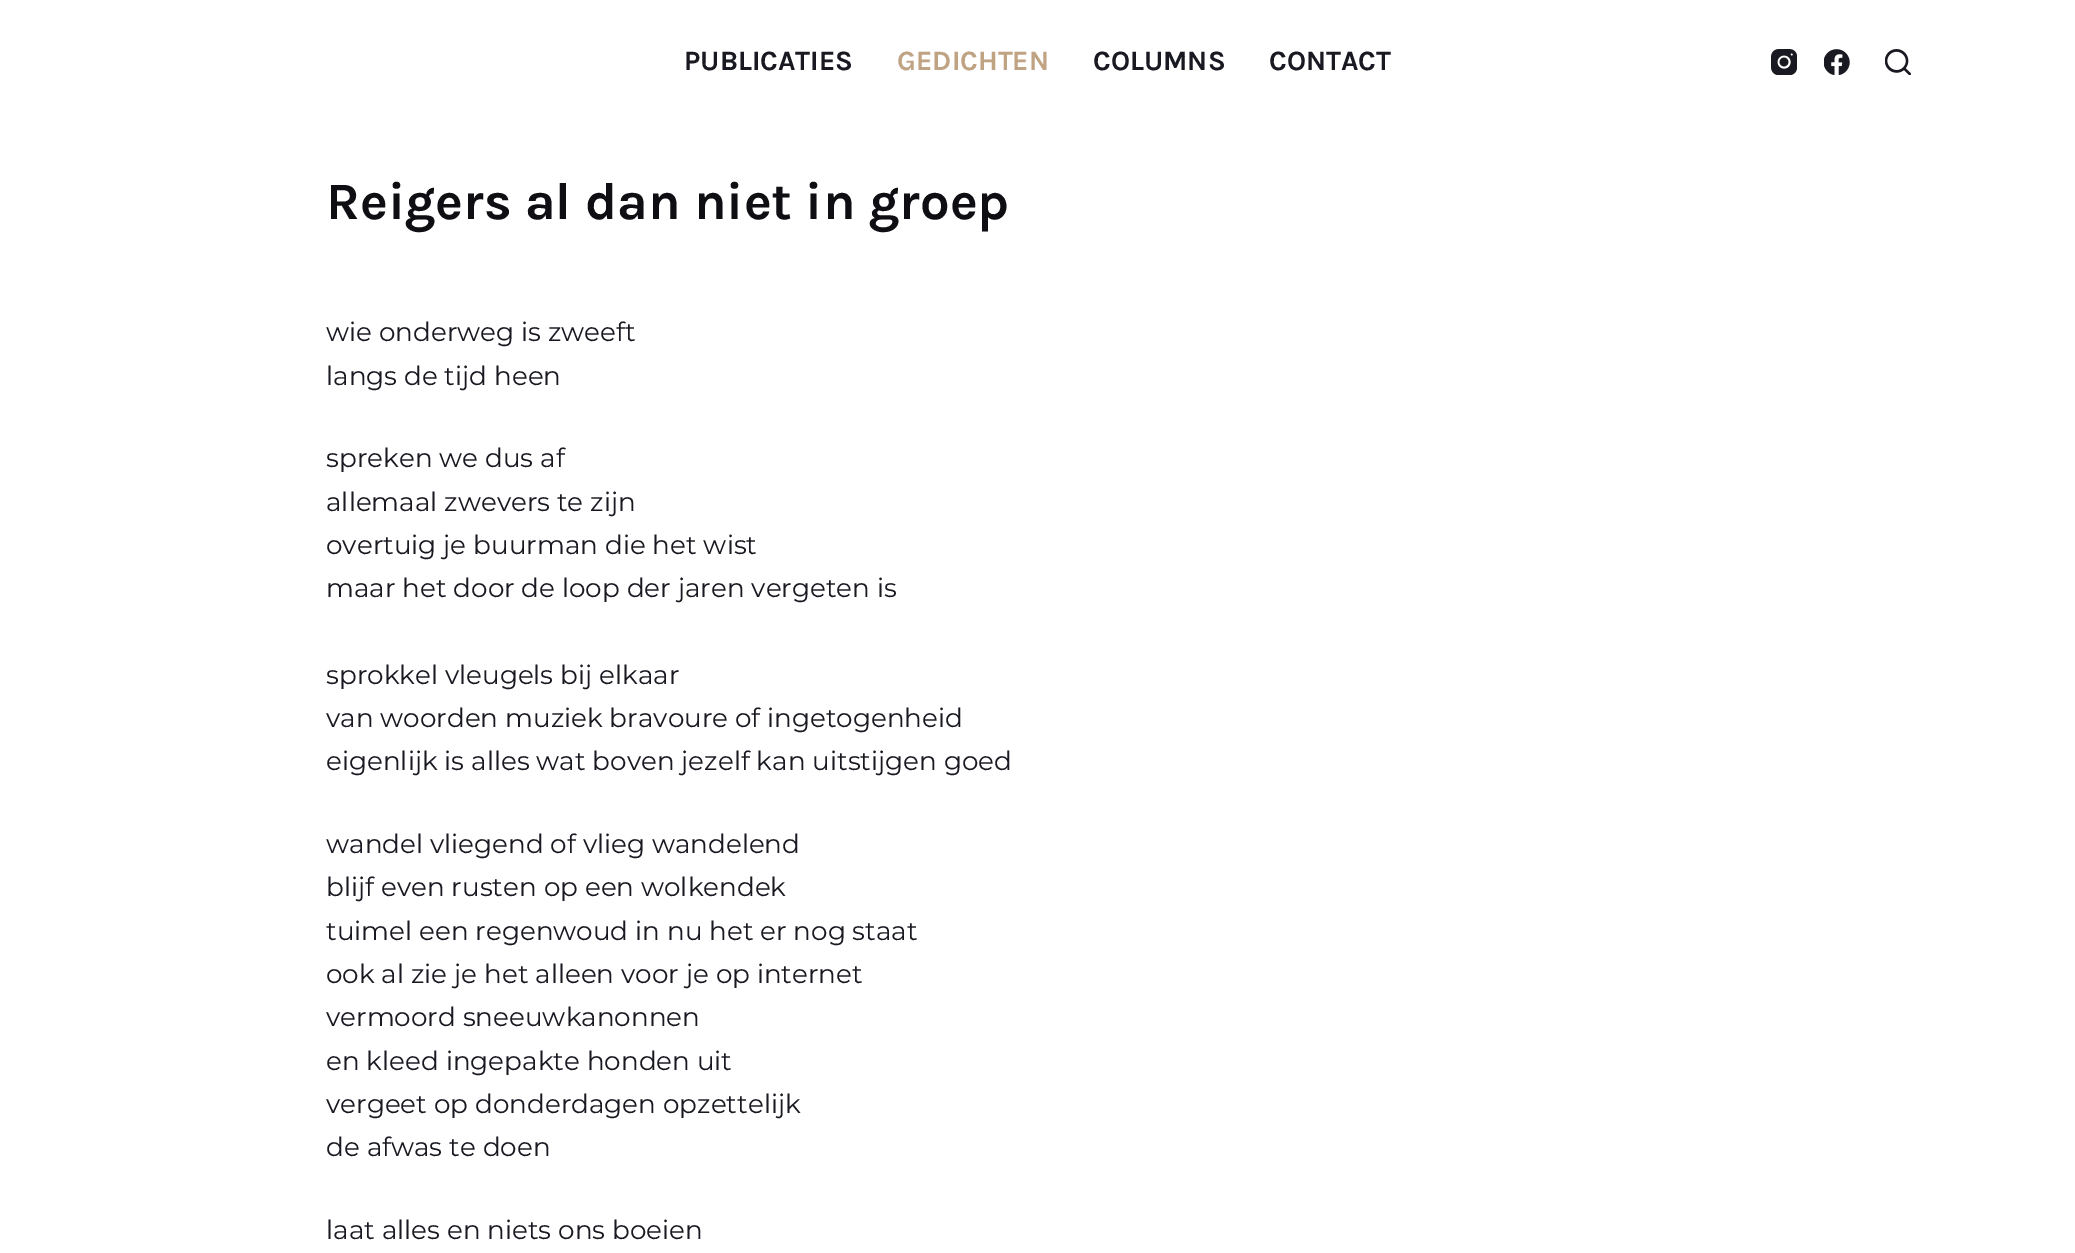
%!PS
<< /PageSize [2075 1253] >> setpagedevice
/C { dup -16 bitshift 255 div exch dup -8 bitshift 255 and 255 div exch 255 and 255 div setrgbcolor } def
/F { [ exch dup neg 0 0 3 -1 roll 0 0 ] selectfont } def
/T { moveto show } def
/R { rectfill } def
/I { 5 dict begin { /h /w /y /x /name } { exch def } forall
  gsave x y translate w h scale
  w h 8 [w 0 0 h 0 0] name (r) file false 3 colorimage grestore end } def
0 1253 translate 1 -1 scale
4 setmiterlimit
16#FFFFFF C
0 0 2075 1253 R
/Karla-Bold 28 F
16#191922 C
(PUBLICATIES) 684 70 T
16#BFA383 C
(GEDICHTEN) 897 70 T
16#191922 C
(COLUMNS) 1093 70 T
(CONTACT) 1269 70 T
(1.rgb) 1771 49 26 26 I
(2.rgb) 1824 49 26 26 I
(3.rgb) 1885 49 26 26 I
/Karla-Bold 52.5 F
16#0F0E12 C
(Reigers al dan niet in groep) 326 219 T
/Montserrat-Regular 26.25 F
16#191922 C
(wie onderweg is zweeft) 326 341 T
(langs de tijd heen) 326 385 T
(spreken we dus af) 326 467 T
(allemaal zwevers te zijn) 326 511 T
(overtuig je buurman die het wist) 326 554 T
(maar het door de loop der jaren vergeten is) 326 597 T
(sprokkel vleugels bij elkaar) 326 684 T
(van woorden muziek bravoure of ingetogenheid) 326 727 T
(eigenlijk is alles wat boven jezelf kan uitstijgen goed) 326 770 T
(wandel vliegend of vlieg wandelend) 326 853 T
(blijf even rusten op een wolkendek) 326 896 T
(tuimel een regenwoud in nu het er nog staat) 326 940 T
(ook al zie je het alleen voor je op internet) 326 983 T
(vermoord sneeuwkanonnen) 326 1026 T
(en kleed ingepakte honden uit) 326 1070 T
(vergeet op donderdagen opzettelijk) 326 1113 T
(de afwas te doen) 326 1156 T
(laat alles en niets ons boeien) 326 1239 T
showpage
